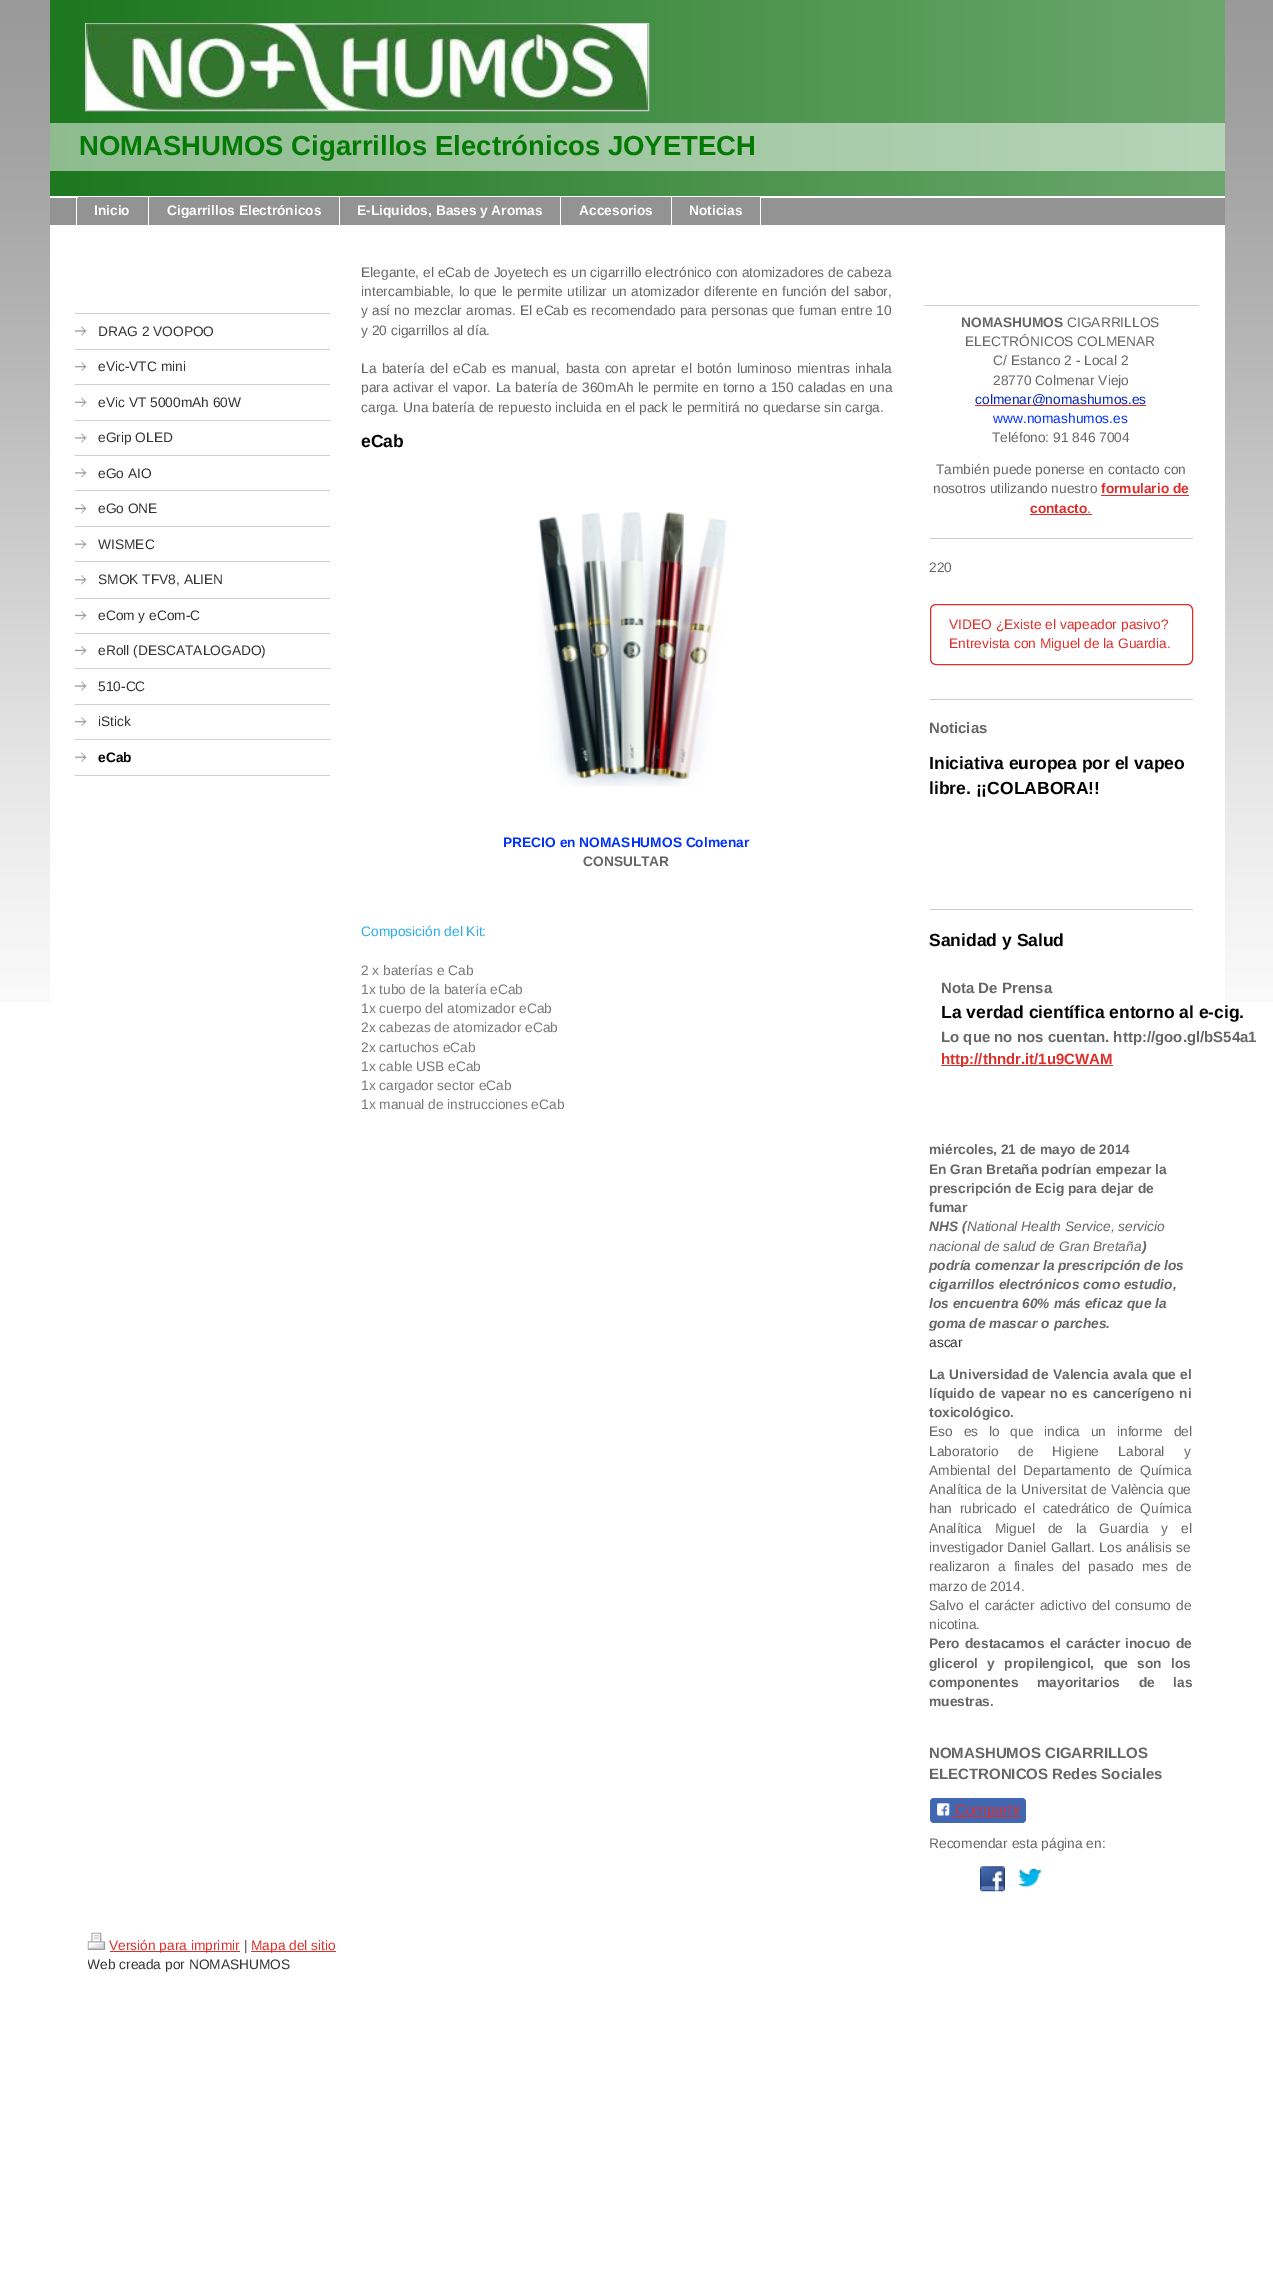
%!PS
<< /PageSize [1273 2283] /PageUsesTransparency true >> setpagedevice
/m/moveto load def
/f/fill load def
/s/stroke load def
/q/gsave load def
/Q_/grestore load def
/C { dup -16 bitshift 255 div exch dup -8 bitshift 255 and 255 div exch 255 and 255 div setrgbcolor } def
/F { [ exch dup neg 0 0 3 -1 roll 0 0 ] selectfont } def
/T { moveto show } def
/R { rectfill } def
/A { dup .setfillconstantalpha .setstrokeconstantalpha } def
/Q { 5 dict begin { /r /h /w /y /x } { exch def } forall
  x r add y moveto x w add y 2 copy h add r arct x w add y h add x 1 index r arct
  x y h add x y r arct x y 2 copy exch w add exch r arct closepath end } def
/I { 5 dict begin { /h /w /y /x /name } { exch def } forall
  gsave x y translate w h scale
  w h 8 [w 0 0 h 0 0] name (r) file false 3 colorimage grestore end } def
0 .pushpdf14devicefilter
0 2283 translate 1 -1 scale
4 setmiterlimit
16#FFFFFF C
0 0 1273 2283 R
(1.rgb) 0 0 1273 1002 I
50 196 1175 806 R
16#086B0A C
50 0 1175 196 R
(2.rgb) 50 0 1175 196 I
16#CCCCCC C
85.5 23.5 563 87 rectstroke
(3.rgb) 86 23 562 87 I
0.5 A
16#FFFFFF C
50 123 1175 48 R
/LiberationSans-Bold 27.5 F
1 A
16#037A04 C
(NOMASHUMOS Cigarrillos Electrónicos JOYETECH) 79 155 T
16#939393 C
50 198 1175 27 R
16#FFFFFF C
76 196 1 29 R
16#939393 C
78 197 70 1 R
16#FFFFFF C
148 196 1 30 R
/LiberationSans-Bold 13.75 F
(Inicio) 94 215 T
16#939393 C
149 197 190 1 R
16#FFFFFF C
339 196 1 30 R
(Cigarrillos Electrónicos) 167 215 T
16#939393 C
340 197 220 1 R
16#FFFFFF C
560 196 1 30 R
(E-Liquidos, Bases y Aromas) 357 215 T
16#939393 C
561 197 199 1 R
16#FFFFFF C
671 196 1 30 R
(Accesorios) 579 215 T
760 196 1 30 R
(Noticias) 689 215 T
(4.rgb) 75 314 255 22 I
16#CAD1D5 C
75 313 255 1 R
75 349 255 1 R
/LiberationSans-Regular 13.75 F
16#333333 C
(DRAG 2 VOOPOO) 98 336 T
(5.rgb) 75 362 12 10 I
16#CAD1D5 C
75 384 255 1 R
16#333333 C
(eVic-VTC mini) 98 371 T
(6.rgb) 75 397 12 10 I
16#CAD1D5 C
75 420 255 1 R
16#333333 C
(eVic VT 5000mAh 60W) 98 407 T
(7.rgb) 75 433 12 10 I
16#CAD1D5 C
75 455 255 1 R
16#333333 C
(eGrip OLED) 98 442 T
(7.rgb) 75 468 12 10 I
16#CAD1D5 C
75 490 255 1 R
16#333333 C
(eGo AIO) 98 478 T
(8.rgb) 75 503 12 11 I
16#CAD1D5 C
75 526 255 1 R
16#333333 C
(eGo ONE) 98 513 T
(9.rgb) 75 539 12 10 I
16#CAD1D5 C
75 561 255 1 R
16#333333 C
(WISMEC) 98 549 T
(10.rgb) 75 575 12 10 I
(SMOK TFV8, ALIEN) 98 584 T
(11.rgb) 75 599 255 21 I
16#CAD1D5 C
75 598 255 1 R
16#333333 C
(eCom y eCom-C) 98 620 T
(11.rgb) 75 634 255 21 I
16#CAD1D5 C
75 633 255 1 R
16#333333 C
(eRoll \(DESCATALOGADO\)) 98 655 T
(4.rgb) 75 669 255 22 I
16#CAD1D5 C
75 668 255 1 R
75 704 255 1 R
16#333333 C
(510-CC) 98 691 T
(5.rgb) 75 717 12 10 I
16#CAD1D5 C
75 739 255 1 R
16#333333 C
(iStick) 98 726 T
(6.rgb) 75 752 12 10 I
16#CAD1D5 C
75 775 255 1 R
/LiberationSans-Bold 13.75 F
16#010101 C
(eCab) 98 762 T
/LiberationSans-Regular 13.75 F
16#666666 C
361 277 m .1 0 32 (Elegante, el eCab de Joyetech es un cigarrillo electrónico con atomizadores de cabeza) widthshow
361 296 m .75 0 32 (intercambiable, lo que le permite utilizar un atomizador diferente en función del sabor,) widthshow
361 315 m .25 0 32 (y así no mezclar aromas. El eCab es recomendado para personas que fuman entre 10) widthshow
(y 20 cigarrillos al día.) 361 335 T
361 373 m 1.5 0 32 (La batería del eCab es manual, basta con apretar el botón luminoso mientras inhala) widthshow
361 392 m .6 0 32 (para activar el vapor. La batería de 360mAh le permite en torno a 150 caladas en una) widthshow
(carga. Una batería de repuesto incluida en el pack le permitirá no quedarse sin carga.) 361 412 T
/LiberationSans-Bold 17.5 F
16#010101 C
(eCab) 361 447 T
(12.rgb) 538 512 189 275 I
/LiberationSans-Bold 13.75 F
16#0231F9 C
(PRECIO en NOMASHUMOS Colmenar) 503 847 T
16#666666 C
(CONSULTAR) 583 866 T
/LiberationSans-Regular 13.75 F
16#28ACEA C
(Composición del Kit:) 361 936 T
16#787878 C
(2 x baterías e Cab) 361 975 T
(1x tubo de la batería eCab) 361 994 T
(1x cuerpo del atomizador eCab) 361 1013 T
(2x cabezas de atomizador eCab) 361 1032 T
(2x cartuchos eCab) 361 1052 T
(1x cable USB eCab) 361 1071 T
(1x cargador sector eCab) 361 1090 T
(1x manual de instrucciones eCab) 361 1109 T
16#CAD1D5 C
924 305 275 1 R
/LiberationSans-Bold 13.75 F
16#666666 C
(NOMASHUMOS) 961 327 T
/LiberationSans-Regular 13.75 F
(CIGARRILLOS) 1067 327 T
(ELECTRÓNICOS COLMENAR) 965 346 T
(C/ Estanco 2 - Local 2) 993 365 T
(28770 Colmenar Viejo) 993 385 T
16#DB2F2C C
975 405 171 1 R
16#0325BC C
(colmenar@nomashumos.es) 975 404 T
16#0231F9 C
(www.nomashumos.es) 993 423 T
16#666666 C
(Teléfono: 91 846 7004) 992 442 T
(También puede ponerse en contacto con) 936 474 T
(nosotros utilizando nuestro) 933 493 T
/LiberationSans-Bold 13.75 F
16#DB2F2C C
(formulario de) 1101 493 T
1101 495 88 1 R
(contacto) 1030 513 T
/LiberationSans-Regular 13.75 F
(.) 1087 513 T
1030 514 62 1 R
16#CCCCCC C
930 538 263 1 R
16#666666 C
(220) 929 572 T
16#DB2F2C C
930.5 604.5 262 60 5.5 Q s
(VIDEO ¿Existe el vapeador pasivo?) 949 629 T
(Entrevista con Miguel de la Guardia.) 949 648 T
16#CCCCCC C
930 699 263 1 R
/LiberationSans-Bold 15 F
16#666666 C
(Noticias) 929 733 T
/LiberationSans-Bold 17.5 F
16#010101 C
(Iniciativa europea por el vapeo) 929 769 T
(libre. ¡¡COLABORA!!) 929 794 T
16#CCCCCC C
930 909 263 1 R
16#010101 C
(Sanidad y Salud) 929 946 T
/LiberationSans-Bold 15 F
16#666666 C
(Nota De Prensa) 941 993 T
/LiberationSans-Bold 17.5 F
16#010101 C
(La verdad científica entorno al e-cig.) 941 1018 T
/LiberationSans-Bold 15 F
16#666666 C
(Lo que no nos cuentan. http://goo.gl/bS54a1) 941 1042 T
16#DB2F2C C
941 1065 172 1 R
(http://thndr.it/1u9CWAM) 941 1064 T
/LiberationSans-Bold 13.75 F
16#666666 C
(miércoles, 21 de mayo de 2014) 929 1154 T
(En Gran Bretaña podrían empezar la) 929 1174 T
(prescripción de Ecig para dejar de) 929 1193 T
(fumar) 929 1212 T
/LiberationSans-BoldItalic 13.75 F
(NHS \() 929 1231 T
/LiberationSans-Italic 13.75 F
(National Health Service, servicio) 967 1231 T
(nacional de salud de Gran Bretaña) 929 1251 T
/LiberationSans-BoldItalic 13.75 F
(\)) 1142 1251 T
(podría comenzar la prescripción de los) 929 1270 T
(cigarrillos electrónicos como estudio,) 929 1289 T
(los encuentra 60% más eficaz que la) 929 1308 T
(goma de mascar o parches.) 929 1328 T
/LiberationSans-Regular 13.75 F
16#333333 C
(ascar) 929 1347 T
/LiberationSans-Bold 13.75 F
16#666666 C
929 1379 m .5 0 32 (La Universidad de Valencia avala que el) widthshow
929 1398 m 1.5 0 32 (líquido de vapear no es cancerígeno ni) widthshow
(toxicológico.) 929 1417 T
/LiberationSans-Regular 13.75 F
929 1436 m 7 0 32 (Eso es lo que indica un informe del) widthshow
929 1456 m 15.5 0 32 (Laboratorio de Higiene Laboral y) widthshow
929 1475 m 3.5 0 32 (Ambiental del Departamento de Química) widthshow
929 1494 m .75 0 32 (Analítica de la Universitat de València que) widthshow
929 1513 m 3.75 0 32 (han rubricado el catedrático de Química) widthshow
929 1533 m 9 0 32 (Analítica Miguel de la Guardia y el) widthshow
929 1552 m .5 0 32 (investigador Daniel Gallart. Los análisis se) widthshow
929 1571 m 4.5 0 32 (realizaron a finales del pasado mes de) widthshow
(marzo de 2014.) 929 1591 T
929 1610 m 1.5 0 32 (Salvo el carácter adictivo del consumo de) widthshow
(nicotina.) 929 1629 T
/LiberationSans-Bold 13.75 F
929 1648 m 1.5 0 32 (Pero destacamos el carácter inocuo de) widthshow
929 1668 m 5.5 0 32 (glicerol y propilengicol, que son los) widthshow
929 1687 m 15 0 32 (componentes mayoritarios de las) widthshow
(muestras.) 929 1706 T
/LiberationSans-Bold 15 F
(NOMASHUMOS CIGARRILLOS) 929 1758 T
(ELECTRONICOS Redes Sociales) 929 1779 T
16#4267B2 C
930 1798 96 25 4 Q f
(13.rgb) 937 1803 13 13 I
16#DB2F2C C
951 1816 70 1 R
/LiberationSans-Regular 15 F
(Compartir) 955 1815 T
/LiberationSans-Regular 13.75 F
16#666666 C
(Recomendar esta página en:) 929 1848 T
(14.rgb) 980 1866 25 26 I
(15.rgb) 1018 1868 25 19 I
(16.rgb) 87 1932 19 18 I
16#DB2F2C C
110 1951 130 1 R
(Versión para imprimir) 109 1950 T
16#333333 C
(|) 244 1950 T
16#DB2F2C C
251 1951 85 1 R
(Mapa del sitio) 251 1950 T
q
88 1933 1100 42 rectclip
16#333333 C
(Web creada por NOMASHUMOS) 87 1969 T
Q_
.poppdf14devicefilter showpage
